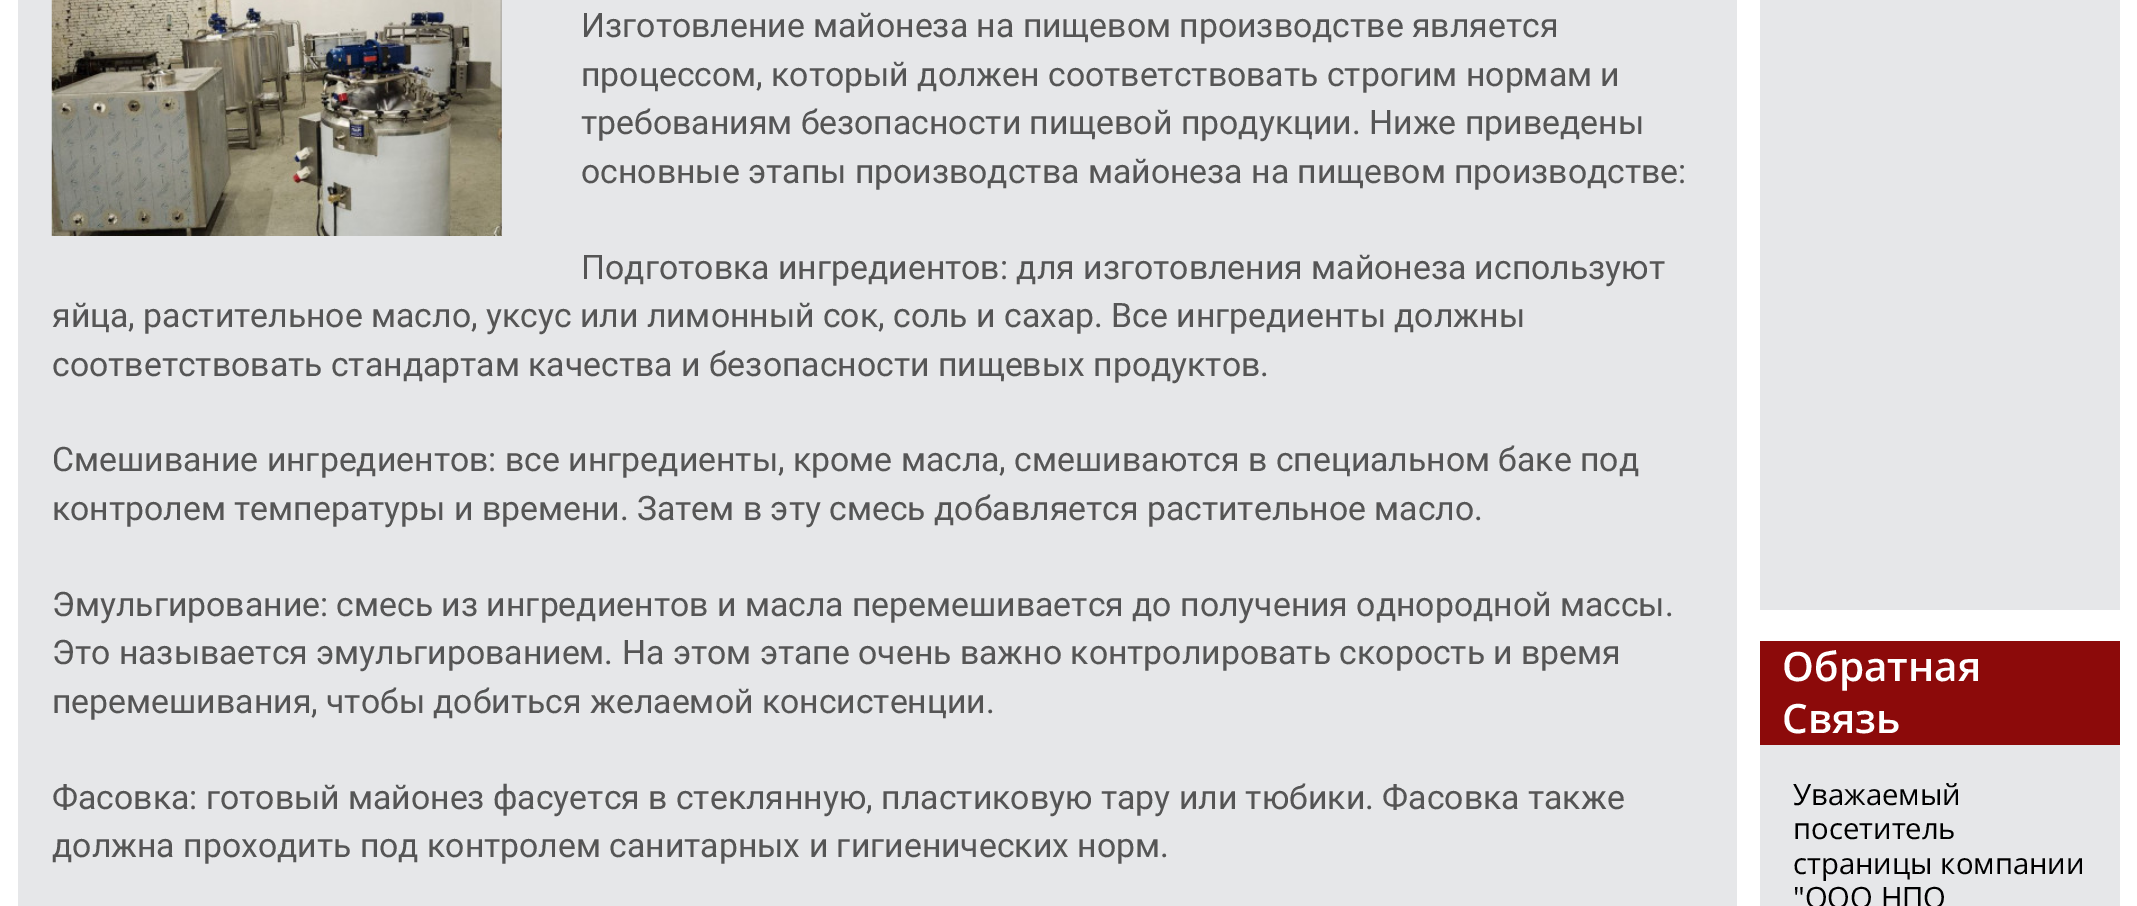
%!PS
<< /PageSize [2137 906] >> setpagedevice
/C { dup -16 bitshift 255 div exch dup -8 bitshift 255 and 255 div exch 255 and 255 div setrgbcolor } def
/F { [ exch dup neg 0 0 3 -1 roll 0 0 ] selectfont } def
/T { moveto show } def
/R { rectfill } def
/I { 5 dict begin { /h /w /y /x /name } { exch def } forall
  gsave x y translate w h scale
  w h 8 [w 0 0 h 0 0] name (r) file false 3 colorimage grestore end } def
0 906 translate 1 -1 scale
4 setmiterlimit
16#FFFFFF C
0 0 2137 906 R
16#E6E7E9 C
18 0 1719 906 R
(1.rgb) 51 0 451 236 I
/Roboto-Regular 33.75 F
16#555555 C
(Изготовление майонеза на пищевом производстве является) 581 37 T
(процессом, который должен соответствовать строгим нормам и) 581 86 T
(требованиям безопасности пищевой продукции. Ниже приведены) 581 134 T
(основные этапы производства майонеза на пищевом производстве:) 581 183 T
(Подготовка ингредиентов: для изготовления майонеза используют) 581 279 T
(яйца, растительное масло, уксус или лимонный сок, соль и сахар. Все ингредиенты должны) 52 327 T
(соответствовать стандартам качества и безопасности пищевых продуктов.) 52 376 T
(Смешивание ингредиентов: все ингредиенты, кроме масла, смешиваются в специальном баке под) 52 471 T
(контролем температуры и времени. Затем в эту смесь добавляется растительное масло.) 52 520 T
(Эмульгирование: смесь из ингредиентов и масла перемешивается до получения однородной массы.) 52 616 T
(Это называется эмульгированием. На этом этапе очень важно контролировать скорость и время) 52 664 T
(перемешивания, чтобы добиться желаемой консистенции.) 52 713 T
(Фасовка: готовый майонез фасуется в стеклянную, пластиковую тару или тюбики. Фасовка также) 52 809 T
(должна проходить под контролем санитарных и гигиенических норм.) 52 857 T
16#E6E7E9 C
1760 0 360 610 R
16#8C0A0A C
1760 641 360 104 R
/OpenSans-SemiBold 40.5 F
16#FFFFFF C
(Обратная) 1782 681 T
(Связь) 1782 733 T
16#E6E7E9 C
1760 745 360 161 R
/OpenSans-Regular 29.25 F
16#000000 C
(Уважаемый) 1793 805 T
(посетитель) 1793 839 T
(страницы компании) 1793 874 T
("ООО НПО) 1793 908 T
showpage
